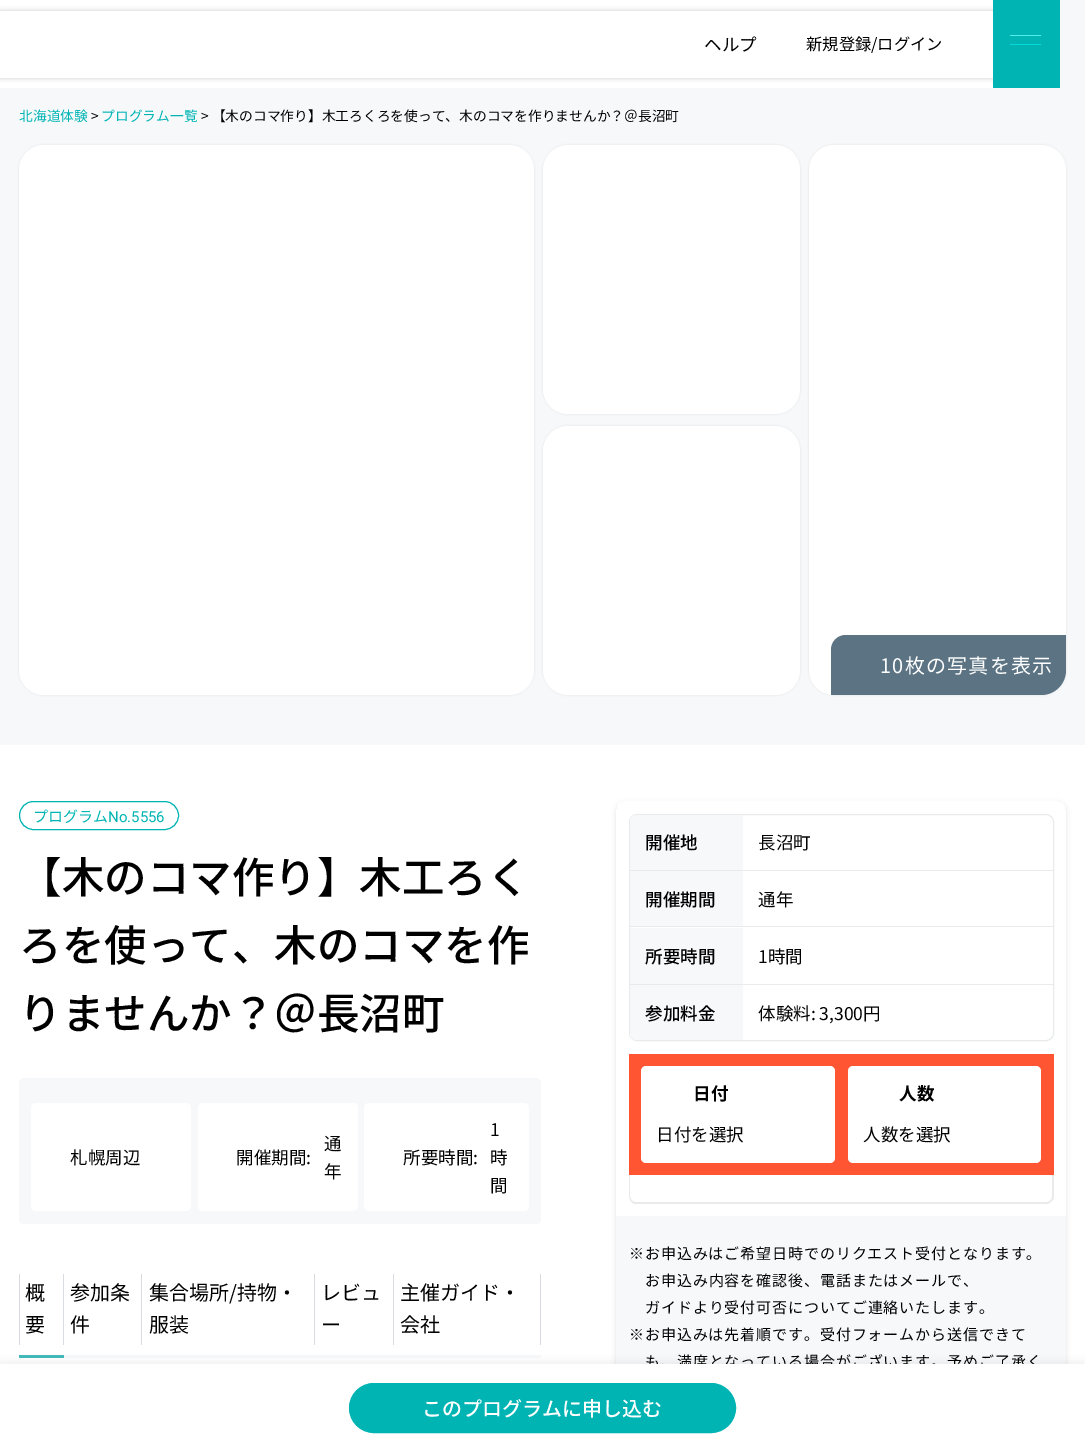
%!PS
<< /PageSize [1085 1451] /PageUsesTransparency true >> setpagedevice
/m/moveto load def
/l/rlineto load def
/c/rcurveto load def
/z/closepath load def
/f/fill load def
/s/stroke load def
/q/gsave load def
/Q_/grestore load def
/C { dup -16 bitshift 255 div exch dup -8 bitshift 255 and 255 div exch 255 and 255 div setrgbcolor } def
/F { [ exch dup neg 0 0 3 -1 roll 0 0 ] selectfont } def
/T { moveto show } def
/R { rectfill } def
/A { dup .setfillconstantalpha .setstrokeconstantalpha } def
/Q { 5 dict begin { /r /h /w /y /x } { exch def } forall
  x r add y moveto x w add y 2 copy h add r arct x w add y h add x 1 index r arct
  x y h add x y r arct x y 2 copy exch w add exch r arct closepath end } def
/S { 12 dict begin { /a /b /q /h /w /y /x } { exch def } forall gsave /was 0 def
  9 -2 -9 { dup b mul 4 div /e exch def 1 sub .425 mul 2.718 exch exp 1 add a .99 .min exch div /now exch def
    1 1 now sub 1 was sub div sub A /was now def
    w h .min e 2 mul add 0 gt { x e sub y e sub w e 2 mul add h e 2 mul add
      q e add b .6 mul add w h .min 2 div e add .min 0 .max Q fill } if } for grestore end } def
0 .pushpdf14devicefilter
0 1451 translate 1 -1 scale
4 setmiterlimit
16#F6F8FA C
0 0 1085 1451 R
16#FFFFFF C
0 0 993 88 R
16#CCCCCC C
0 11 993 67 0 2.5 1 S
16#FFFFFF C
0 11 993 67 R
/NotoSansJP-Regular 17.5 F
16#000000 C
(ヘルプ) 704 51 T
/NotoSansJP-Regular 16.25 F
(新規登録/ログイン) 806 50 T
16#00B4B4 C
993 0 67 88 R
16#52EDED C
1010 35 31 1 R
16#07D9D9 C
1010 44 31 1 R
16#FFFFFF C
0 745 1085 619 R
/NotoSansJP-Regular 13.75 F
16#00B4B4 C
(北海道体験) 19 121 T
16#000000 C
(>) 91 121 T
16#00B4B4 C
(プログラム一覧) 101 121 T
16#000000 C
(> 【木のコマ作り】木工ろくろを使って、木のコマを作りませんか？＠長沼町) 201 121 T
19 145 515 550 25 1 .1 S
16#FFFFFF C
19 145 515 550 25 Q f
16#000000 C
543 145 257 269 25 1 .1 S
16#FFFFFF C
543 145 257 269 25 Q f
16#000000 C
543 426 257 269 25 1 .1 S
16#FFFFFF C
543 426 257 269 25 Q f
16#000000 C
809 145 257 550 25 1 .1 S
16#FFFFFF C
809 145 257 550 25 Q f
q
809 145 257 550 25 Q clip newpath
0.8 A
16#325064 C
846 635 m 220 0 l 0 35 l 0 14 -11 25 -25 25 c -210 0 l 0 -45 l 0 -8.5 6.5 -15 15 -15 c z f
Q_
/NotoSansJP-Regular 20 F
880 673 m 1.25 0 (10枚の写真を表示) ashow
16#00B4B4 C
19.5 801.5 159 28 14 Q s
/NotoSansJP-Regular 15 F
(プログラム) 33 822 T
/Roboto-Regular 15 F
(No.5556) 108 822 T
/NotoSansJP-Medium 42.5 F
16#000000 C
(【木のコマ作り】木工ろく) 19 893 T
(ろを使って、木のコマを作) 19 961 T
(りませんか？＠長沼町) 19 1029 T
16#F6F8FA C
19 1078 522 146 5 Q f
16#FFFFFF C
31 1103 160 108 5 Q f
/NotoSansJP-Regular 17.5 F
16#000000 C
(札幌周辺) 70 1164 T
16#FFFFFF C
198 1103 160 108 5 Q f
16#000000 C
(開催期間:) 236 1164 T
(通) 324 1150 T
(年) 324 1178 T
16#FFFFFF C
364 1103 165 108 5 Q f
16#000000 C
(所要時間:) 403 1164 T
(1) 490 1136 T
(時) 490 1164 T
(間) 490 1192 T
16#D8DCE0 C
19 1274 1 71 R
16#43BABA C
19 1355 45 3 R
/NotoSansJP-Regular 20 F
16#000000 C
(概) 25 1300 T
(要) 25 1332 T
16#D8DCE0 C
63 1274 1 71 R
16#F6F8FA C
64 1355 477 3 R
16#000000 C
(参加条) 70 1300 T
(件) 70 1332 T
16#D8DCE0 C
141 1274 1 71 R
16#000000 C
(集合場所/持物・) 149 1300 T
(服装) 149 1332 T
16#D8DCE0 C
314 1274 1 71 R
16#000000 C
(レビュ) 321 1300 T
(ー) 321 1332 T
16#D8DCE0 C
393 1274 1 71 R
16#000000 C
(主催ガイド・) 400 1300 T
(会社) 400 1332 T
16#D8DCE0 C
540 1274 1 71 R
q
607 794 m 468 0 l 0 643 l -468 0 l z 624 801 m 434 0 l 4.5 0 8 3.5 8 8 c 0 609 l 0 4.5 -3.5 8 -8 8 c -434 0 l -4.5 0 -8 -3.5 -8 -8 c 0 -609 l 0 -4.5 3.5 -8 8 -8 c z eoclip newpath
16#000000 C
616 803 450 625 8 2.5 .1 S
Q_
16#E8EAEC C
629.5 814.5 424 226 7.5 Q s
16#F6F8FA C
636 815 m 107 0 l 0 55 l -113 0 l 0 -49 l 0 -3.5 2.5 -6 6 -6 c z f
/NotoSansJP-Medium 17.5 F
16#000000 C
(開催地) 645 849 T
/NotoSansJP-Regular 17.5 F
(長沼町) 758 849 T
16#E8EAEC C
630 870 423 1 R
16#F6F8FA C
630 871 113 55 R
/NotoSansJP-Medium 17.5 F
16#000000 C
(開催期間) 645 906 T
/NotoSansJP-Regular 17.5 F
(通年) 758 906 T
16#E8EAEC C
630 926 423 1 R
16#F6F8FA C
630 928 113 56 R
/NotoSansJP-Medium 17.5 F
16#000000 C
(所要時間) 645 963 T
/NotoSansJP-Regular 17.5 F
(1時間) 758 963 T
16#E8EAEC C
630 984 423 1 R
16#F6F8FA C
630 985 m 113 0 l 0 55 l -107 0 l -3.5 0 -6 -2.5 -6 -6 c z f
/NotoSansJP-Medium 17.5 F
16#000000 C
(参加料金) 645 1020 T
/NotoSansJP-Regular 17.5 F
(体験料: 3,300円) 758 1020 T
16#FF5533 C
629 1054 425 121 R
16#FFFFFF C
641 1066 194 97 5 Q f
/NotoSansJP-Bold 17.5 F
16#000000 C
(日付) 693 1100 T
/NotoSansJP-Regular 17.5 F
(日付を選択) 656 1141 T
16#FFFFFF C
848 1066 193 97 5 Q f
/NotoSansJP-Bold 17.5 F
16#000000 C
(人数) 899 1100 T
/NotoSansJP-Regular 17.5 F
(人数を選択) 863 1141 T
16#E8EAEC C
629 1175 m 425 0 l 0 21 l 0 4 -4 8 -8 8 c -410 0 l -4 0 -7 -4 -7 -8 c z 630 1175 m 422 0 l 0 21 l 0 4 -2 6 -6 6 c -410 0 l -3 0 -6 -2 -6 -6 c z eofill
16#F6F8FA C
616 1216 450 148 R
/NotoSansJP-Regular 15 F
16#000000 C
629 1259 m .9 0 (※お申込みはご希望日時でのリクエスト受付となります。) ashow
645 1286 m .9 0 (お申込み内容を確認後、電話またはメールで、) ashow
645 1313 m .9 0 (ガイドより受付可否についてご連絡いたします。) ashow
629 1340 m .9 0 (※お申込みは先着順です。受付フォームから送信できて) ashow
645 1367 m .9 0 (も、満席となっている場合がございます。予めご了承く) ashow
0 1361 1085 88 0 4 .06 S
16#FFFFFF C
0 1364 1085 87 R
16#00B4B4 C
349.5 1383.5 386 49 24.5 Q q f Q_
s
/NotoSansJP-Medium 20 F
16#FFFFFF C
(このプログラムに申し込む) 422 1416 T
.poppdf14devicefilter showpage
